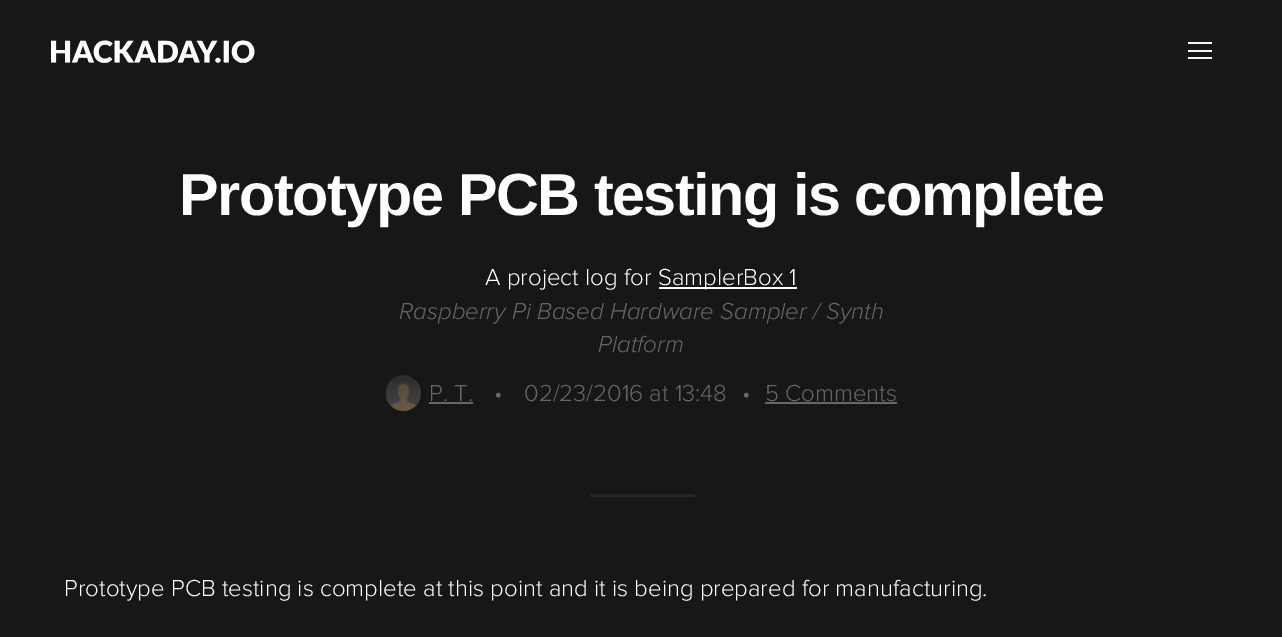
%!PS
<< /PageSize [1282 637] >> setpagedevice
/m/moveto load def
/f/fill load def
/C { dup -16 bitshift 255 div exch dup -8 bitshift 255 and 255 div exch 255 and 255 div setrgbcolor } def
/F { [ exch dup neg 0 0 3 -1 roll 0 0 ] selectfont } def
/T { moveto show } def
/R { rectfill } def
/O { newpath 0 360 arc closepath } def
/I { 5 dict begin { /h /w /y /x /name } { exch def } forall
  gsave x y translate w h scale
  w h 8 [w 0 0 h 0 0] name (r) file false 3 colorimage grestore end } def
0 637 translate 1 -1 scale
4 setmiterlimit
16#171717 C
0 0 1282 637 R
(1.rgb) 51 40 204 23 I
16#F5F5F5 C
1188 42 24 2 R
1188 50 24 2 R
1188 57 24 2 R
/LiberationSans-Bold 59.4 F
16#FFFFFF C
179 215 m -1.5 0 (Prototype PCB testing is complete) ashow
/ProximaNova-Light 24 F
(A project log for) 485 285 T
659 287 138 2 R
(SamplerBox 1) 658 285 T
/ProximaNova-LightItalic 24 F
16#676767 C
(Raspberry Pi Based Hardware Sampler / Synth) 399 319 T
(Platform) 598 352 T
16#000000 C
404 393 18 O f
(2.rgb) 385 375 37 36 I
/ProximaNova-Light 24 F
16#676767 C
(P. T.) 429 401 T
429 402 44 2 R
(•) 494 401 T
(02/23/2016 at 13:48) 524 401 T
(•) 742 401 T
(5 Comments) 765 401 T
765 402 132 2 R
16#272727 C
590 494 105 3 R
16#FFFFFF C
(Prototype PCB testing is complete at this point and it is being prepared for manufacturing.) 64 596 T
showpage
